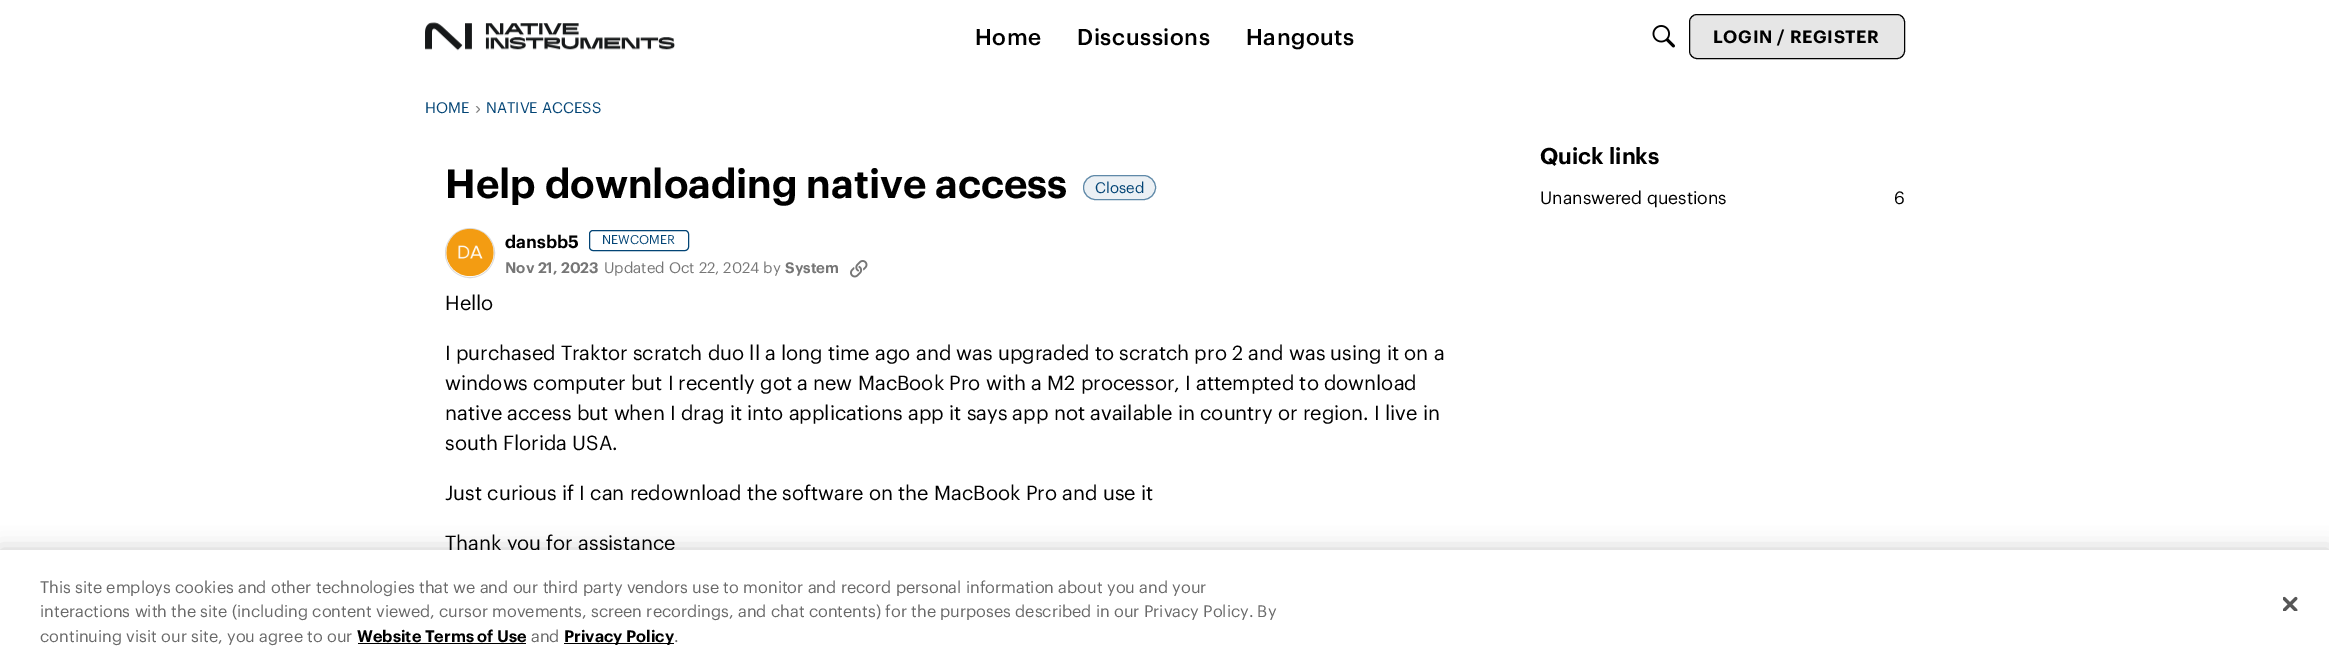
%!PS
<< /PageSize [2329 661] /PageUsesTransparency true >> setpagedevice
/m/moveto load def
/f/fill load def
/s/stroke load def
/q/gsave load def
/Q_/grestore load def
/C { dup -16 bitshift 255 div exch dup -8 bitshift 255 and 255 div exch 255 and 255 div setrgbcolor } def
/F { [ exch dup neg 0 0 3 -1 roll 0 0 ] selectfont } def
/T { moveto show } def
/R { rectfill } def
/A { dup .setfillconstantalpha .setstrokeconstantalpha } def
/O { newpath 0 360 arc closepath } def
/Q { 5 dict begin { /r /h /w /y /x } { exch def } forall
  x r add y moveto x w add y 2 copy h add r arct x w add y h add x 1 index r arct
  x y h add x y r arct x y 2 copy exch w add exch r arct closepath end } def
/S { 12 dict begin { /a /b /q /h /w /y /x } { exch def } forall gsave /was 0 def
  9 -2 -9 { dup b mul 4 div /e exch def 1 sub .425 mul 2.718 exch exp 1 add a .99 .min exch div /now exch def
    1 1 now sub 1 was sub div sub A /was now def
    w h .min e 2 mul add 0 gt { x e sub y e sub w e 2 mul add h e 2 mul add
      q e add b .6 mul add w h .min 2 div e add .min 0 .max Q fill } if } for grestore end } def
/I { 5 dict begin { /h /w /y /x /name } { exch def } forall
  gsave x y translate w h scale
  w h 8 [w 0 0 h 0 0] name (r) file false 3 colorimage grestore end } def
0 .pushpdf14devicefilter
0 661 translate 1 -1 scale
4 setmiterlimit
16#FFFFFF C
0 0 2329 661 R
(1.rgb) 425 22 250 29 I
/Graphik-Medium 22.5 F
16#000000 C
975 45 m .6 0 (Home) ashow
1077 45 m .6 0 (Discussions) ashow
1246 45 m .6 0 (Hangouts) ashow
(2.rgb) 1652 25 23 23 I
16#E6E6E6 C
1689.5 14.5 215 44 7.5 Q q f Q_
16#000000 C
s
/Graphik-SemiBold 17.5 F
1713 43 m .6 0 (LOGIN / REGISTER) ashow
/Graphik-Regular 15 F
16#024475 C
(HOME) 425 113 T
/LiberationSans-Regular 17.5 F
16#808080 C
(›) 475 114 T
/Graphik-Regular 15 F
16#024475 C
(NATIVE ACCESS) 486 113 T
/Graphik-SemiBold 40 F
16#000000 C
(Help downloading native access) 445 198 T
16#EBF0F4 C
1083 175 73 25 12.5 Q f
0.6 A
16#024475 C
1083.5 175.5 72 24 12 Q s
/Graphik-Regular 15 F
1 A
(Closed) 1095 193 T
16#D9D9D9 C
470 253 24.5 O s
(3.rgb) 446 228 48 49 I
/Graphik-SemiBold 17.5 F
16#000000 C
(dansbb5) 505 248 T
16#024475 C
589.5 230.5 99 20 3.5 Q s
/Graphik-Regular 12.5 F
(NEWCOMER) 602 244 T
/Graphik-SemiBold 15 F
16#767676 C
(Nov 21, 2023) 505 273 T
/Graphik-Regular 15 F
(Updated Oct 22, 2024 by) 604 273 T
/Graphik-SemiBold 15 F
(System) 785 273 T
(4.rgb) 850 260 18 18 I
/Graphik-Regular 20 F
16#000000 C
(Hello) 445 310 T
(I purchased Traktor scratch duo ll a long time ago and was upgraded to scratch pro 2 and was using it on a) 445 360 T
(windows computer but I recently got a new MacBook Pro with a M2 processor, I attempted to download) 445 390 T
(native access but when I drag it into applications app it says app not available in country or region. I live in) 445 420 T
(south Florida USA.) 445 450 T
(Just curious if I can redownload the software on the MacBook Pro and use it) 445 500 T
(Thank you for assistance) 445 550 T
/Graphik-SemiBold 22.5 F
(Quick links) 1540 164 T
/Graphik-Regular 17.5 F
(Unanswered questions) 1540 204 T
(6) 1894 204 T
0 550 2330 111 0 11 .2 S
16#FFFFFF C
0 550 2329 111 R
/Graphik-Regular 16.25 F
16#696969 C
(This site employs cookies and other technologies that we and our third party vendors use to monitor and record personal information about you and your) 40 593 T
(interactions with the site \(including content viewed, cursor movements, screen recordings, and chat contents\) for the purposes described in our Privacy Policy. By) 40 617 T
(continuing visit our site, you agree to our) 40 642 T
/Graphik-SemiBold 16.25 F
16#000000 C
(Website Terms of Use) 357 642 T
358 643 168 1 R
/Graphik-Regular 16.25 F
16#696969 C
(and) 531 642 T
16#000000 C
564 643 110 1 R
/Graphik-SemiBold 16.25 F
(Privacy Policy) 564 642 T
/Graphik-Regular 16.25 F
16#696969 C
(.) 674 642 T
(5.rgb) 2283 596 15 15 I
.poppdf14devicefilter showpage
